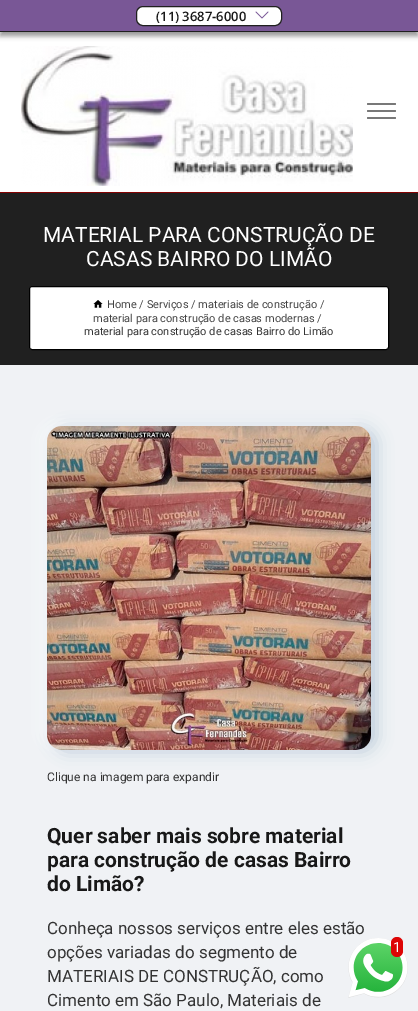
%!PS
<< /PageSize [418 1011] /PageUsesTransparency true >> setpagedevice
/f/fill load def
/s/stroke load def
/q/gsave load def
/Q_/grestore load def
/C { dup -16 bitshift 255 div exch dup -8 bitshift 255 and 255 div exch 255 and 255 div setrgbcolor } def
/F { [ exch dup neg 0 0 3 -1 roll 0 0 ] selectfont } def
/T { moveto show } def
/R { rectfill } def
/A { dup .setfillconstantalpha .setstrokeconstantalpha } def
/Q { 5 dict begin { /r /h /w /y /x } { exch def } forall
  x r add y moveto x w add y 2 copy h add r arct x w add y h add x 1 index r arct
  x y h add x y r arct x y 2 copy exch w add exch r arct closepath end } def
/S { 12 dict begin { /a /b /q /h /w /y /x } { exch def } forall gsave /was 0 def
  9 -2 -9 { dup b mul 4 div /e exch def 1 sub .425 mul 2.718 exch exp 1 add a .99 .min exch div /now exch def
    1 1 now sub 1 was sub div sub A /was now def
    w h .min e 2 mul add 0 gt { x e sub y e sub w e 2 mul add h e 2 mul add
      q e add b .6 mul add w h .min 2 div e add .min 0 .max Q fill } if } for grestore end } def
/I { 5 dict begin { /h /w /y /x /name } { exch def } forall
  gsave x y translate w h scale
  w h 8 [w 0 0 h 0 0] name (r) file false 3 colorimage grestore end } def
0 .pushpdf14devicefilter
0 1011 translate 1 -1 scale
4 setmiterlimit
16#F0F2F5 C
0 0 418 1011 R
16#FFFFFF C
0 32 418 160 R
16#000000 C
0 4 418 32 0 2.5 .4 S
16#795796 C
0 0 418 31 R
16#202020 C
0 31 418 1 R
16#FFFFFF C
136.5 6.5 145 19 6.5 Q q f Q_
16#202020 C
s
/OpenSans-SemiBold 13 F
16#181818 C
(\(11\) 3687-6000) 156 21 T
(1.rgb) 255 11 14 8 I
(2.rgb) 21 46 332 140 I
16#787878 C
367 103 29 2 1 Q f
367 110 29 2 1 Q f
367 117 29 2 1 Q f
16#202020 C
0 193 418 172 R
16#840202 C
0 192 418 1 R
/Roboto-Regular 21 F
16#FFFFFF C
(MATERIAL PARA CONSTRUÇÃO DE) 43 242 T
(CASAS BAIRRO DO LIMÃO) 86 266 T
29.5 286.5 359 63 2.5 Q q f Q_
16#000000 C
s
(3.rgb) 93 300 10 8 I
/Roboto-Regular 11 F
16#444444 C
(Home / Serviços / materiais de construção /) 107 308 T
(material para construção de casas modernas /) 93 322 T
16#333333 C
(material para construção de casas Bairro do Limão) 84 335 T
16#FFFFFF C
41 424 324 324 15 8 .8 S
16#88A5BF C
53 428 324 324 15 8 .48 S
(4.rgb) 47 426 324 324 I
/Roboto-Regular 12 F
16#333333 C
(Clique na imagem para expandir) 47 781 T
/Roboto-Bold 21 F
16#181818 C
(Quer saber mais sobre material) 47 843 T
(para construção de casas Bairro) 47 867 T
(do Limão?) 47 891 T
/Roboto-Regular 17 F
16#333333 C
(Conheça nossos serviços entre eles estão) 47 934 T
(opções variadas do segmento de) 47 958 T
(MATERIAIS DE CONSTRUÇÃO, como) 47 982 T
(Cimento em São Paulo, Materiais de) 47 1006 T
(5.rgb) 348 938 60 60 I
16#DD0505 C
391 937 12 20 6 Q f
/Roboto-Regular 14 F
16#FFFFFF C
(1) 393 952 T
.poppdf14devicefilter showpage
